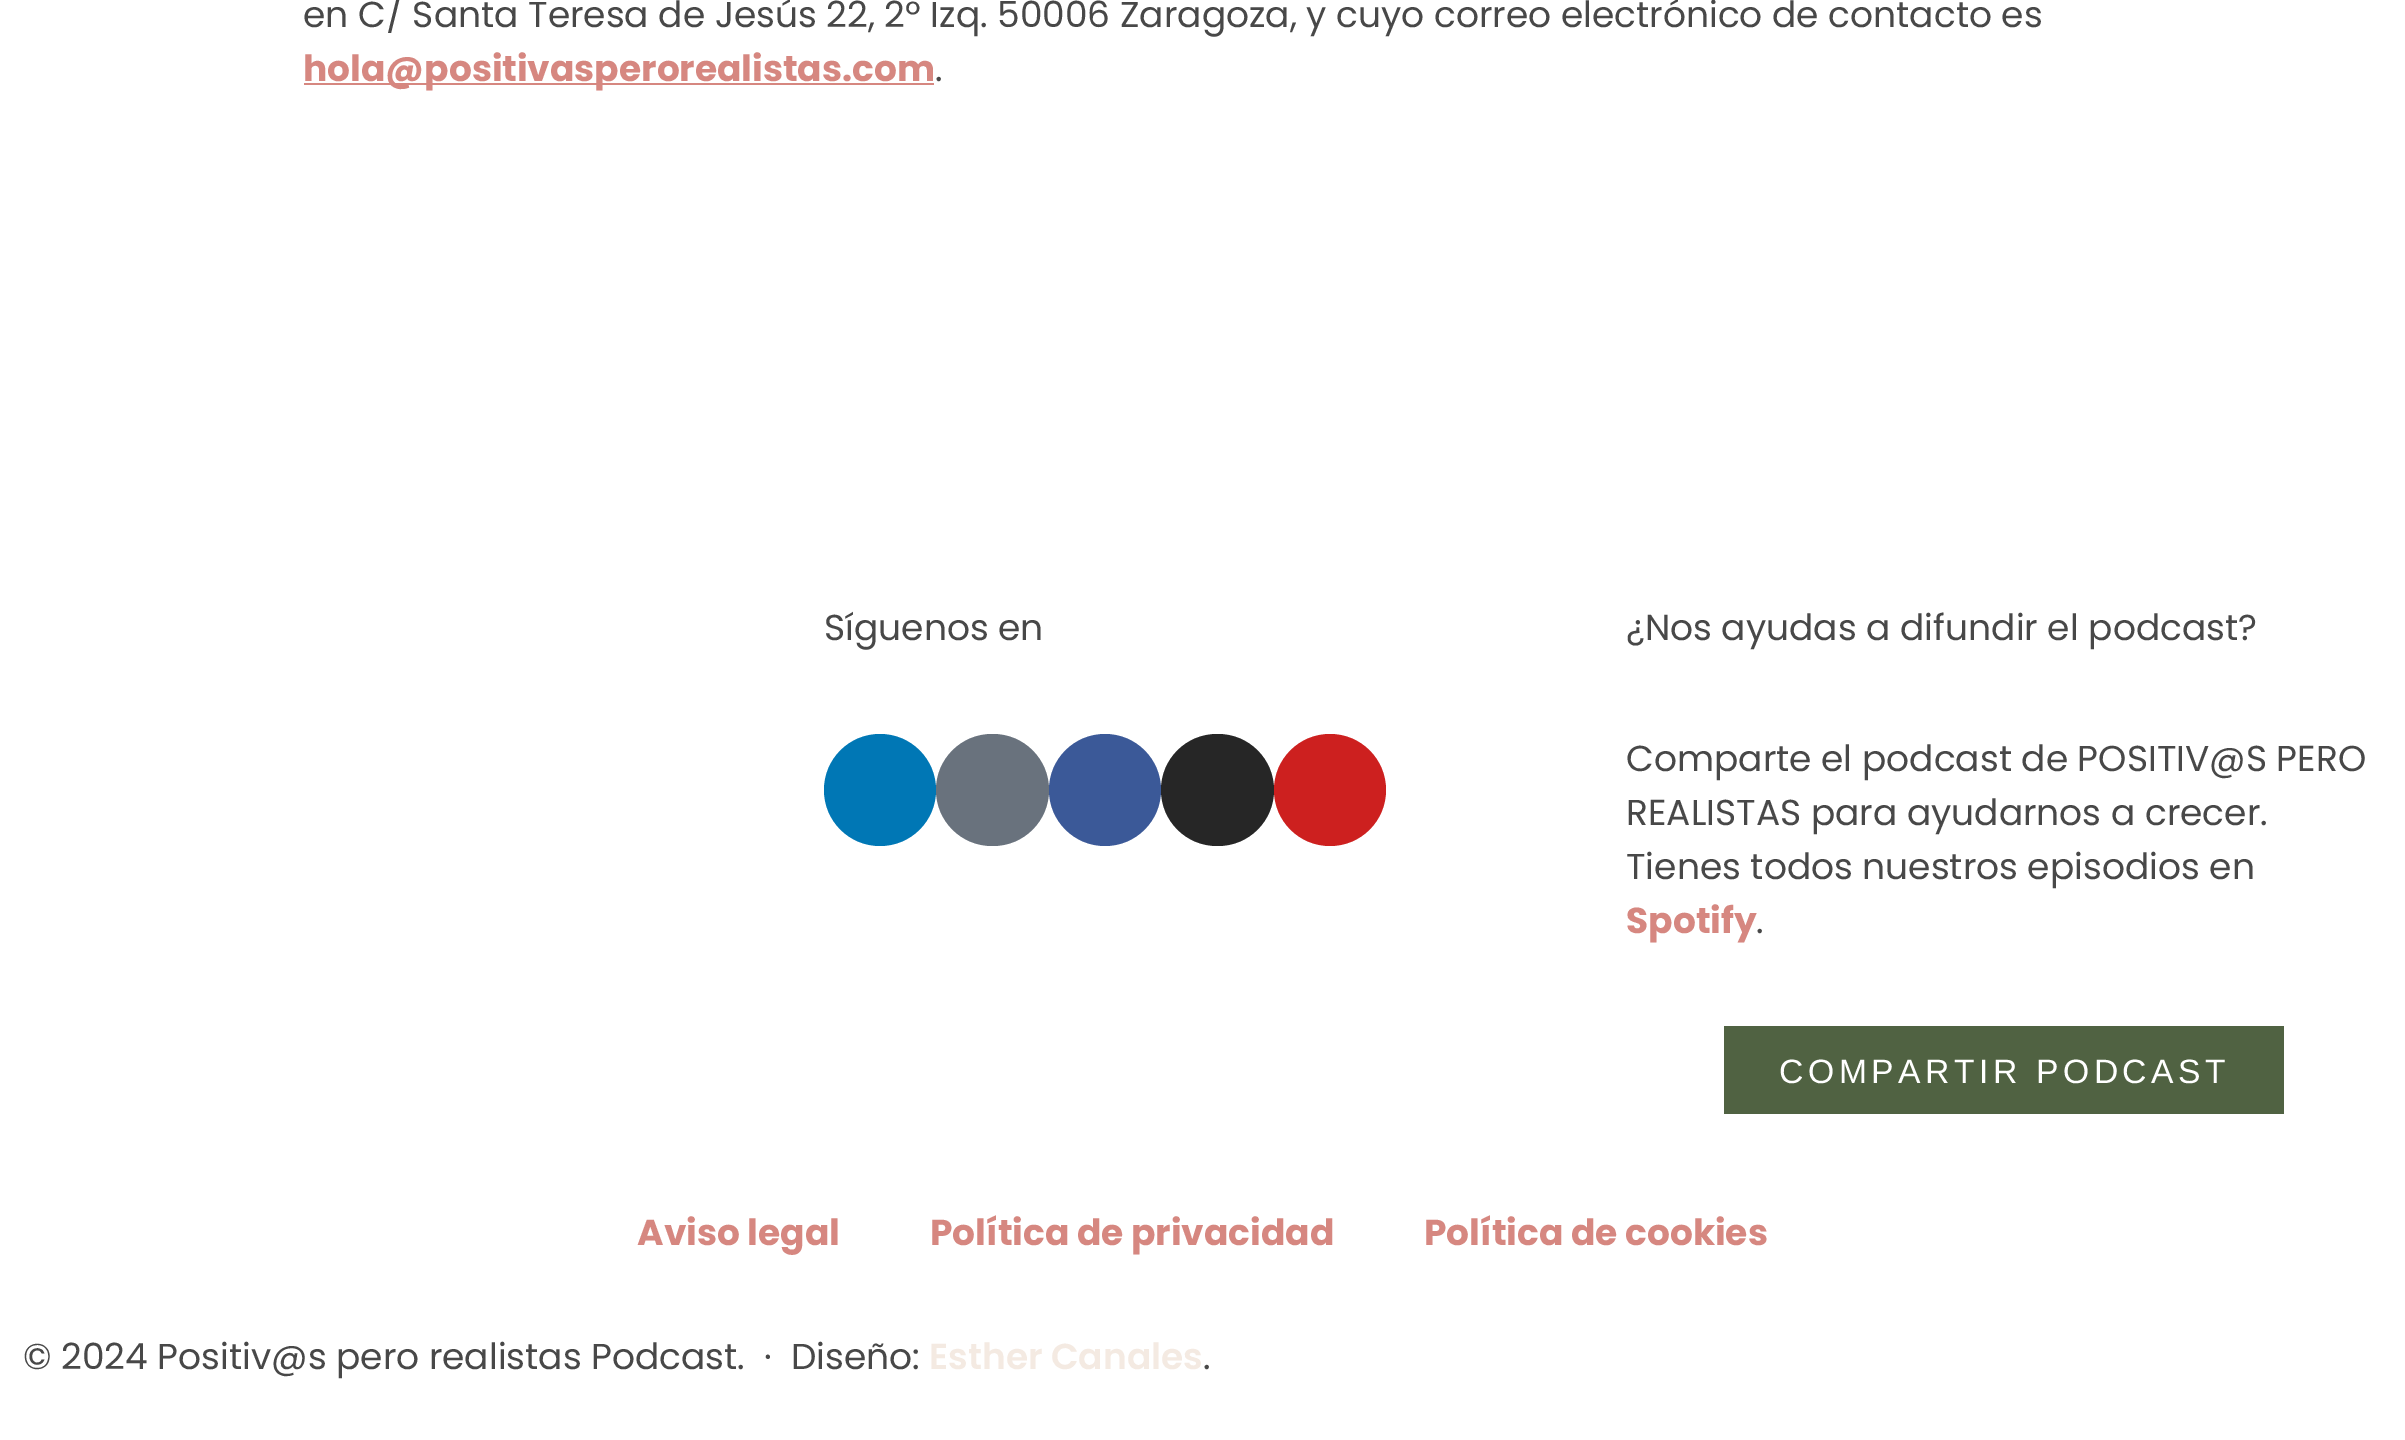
%!PS
<< /PageSize [2405 1440] >> setpagedevice
/m/moveto load def
/f/fill load def
/C { dup -16 bitshift 255 div exch dup -8 bitshift 255 and 255 div exch 255 and 255 div setrgbcolor } def
/F { [ exch dup neg 0 0 3 -1 roll 0 0 ] selectfont } def
/T { moveto show } def
/R { rectfill } def
/O { newpath 0 360 arc closepath } def
/Q { 5 dict begin { /r /h /w /y /x } { exch def } forall
  x r add y moveto x w add y 2 copy h add r arct x w add y h add x 1 index r arct
  x y h add x y r arct x y 2 copy exch w add exch r arct closepath end } def
0 1440 translate 1 -1 scale
4 setmiterlimit
16#FFFFFF C
0 0 2405 1440 R
/Poppins-Regular 36 F
16#484848 C
(en C/ Santa Teresa de Jesús 22, 2º Izq. 50006 Zaragoza, y cuyo correo electrónico de contacto es) 303 27 T
16#D68780 C
304 83 630 2 R
/Poppins-Bold 36 F
(hola@positivasperorealistas.com) 303 81 T
/Poppins-Regular 36 F
16#484848 C
(.) 935 81 T
(Síguenos en) 824 640 T
16#0077B5 C
880 790 56 O f
16#69727D C
936 734 113 112 56 Q f
16#3B5998 C
1105 790 56 O f
16#262626 C
1161 734 113 112 56 Q f
16#CD201F C
1330 790 56 O f
16#484848 C
(¿Nos ayudas a difundir el podcast?) 1626 640 T
(Comparte el podcast de POSITIV@S PERO) 1626 771 T
(REALISTAS para ayudarnos a crecer.) 1626 825 T
(Tienes todos nuestros episodios en) 1626 879 T
/Poppins-Bold 36 F
16#D68780 C
(Spotify) 1626 933 T
/Poppins-Regular 36 F
16#484848 C
(.) 1756 933 T
16#506242 C
1724 1026 560 88 R
/LiberationSans-Regular 33.75 F
16#FFFFFF C
1779 1083 m 4.5 0 (COMPARTIR PODCAST) ashow
/Poppins-Bold 36 F
16#D68780 C
(Aviso legal) 637 1245 T
(Política de privacidad) 930 1245 T
(Política de cookies) 1424 1245 T
/Poppins-Regular 36 F
16#484848 C
(© 2024 Positiv@s pero realistas Podcast.  ·  Diseño:) 23 1369 T
/Poppins-SemiBold 36 F
16#F4EAE2 C
(Esther Canales) 929 1369 T
/Poppins-Regular 36 F
16#484848 C
(.) 1203 1369 T
showpage
